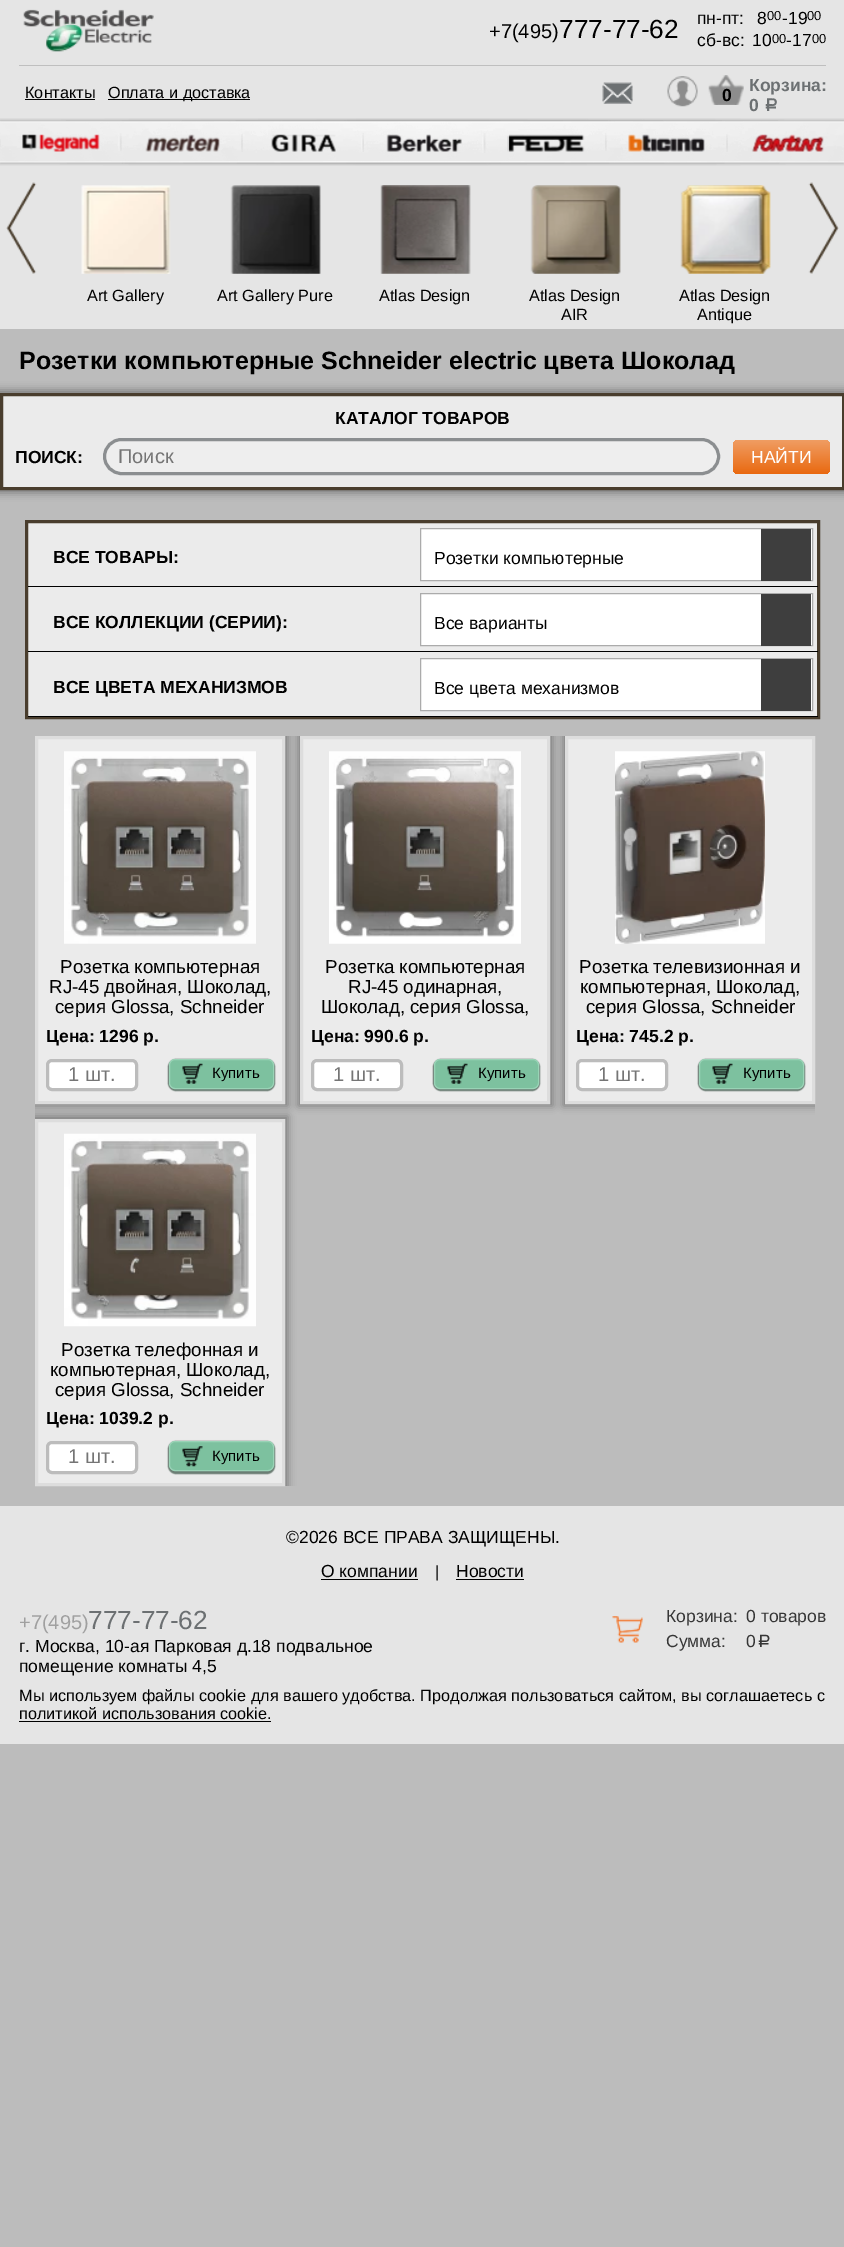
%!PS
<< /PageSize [844 2247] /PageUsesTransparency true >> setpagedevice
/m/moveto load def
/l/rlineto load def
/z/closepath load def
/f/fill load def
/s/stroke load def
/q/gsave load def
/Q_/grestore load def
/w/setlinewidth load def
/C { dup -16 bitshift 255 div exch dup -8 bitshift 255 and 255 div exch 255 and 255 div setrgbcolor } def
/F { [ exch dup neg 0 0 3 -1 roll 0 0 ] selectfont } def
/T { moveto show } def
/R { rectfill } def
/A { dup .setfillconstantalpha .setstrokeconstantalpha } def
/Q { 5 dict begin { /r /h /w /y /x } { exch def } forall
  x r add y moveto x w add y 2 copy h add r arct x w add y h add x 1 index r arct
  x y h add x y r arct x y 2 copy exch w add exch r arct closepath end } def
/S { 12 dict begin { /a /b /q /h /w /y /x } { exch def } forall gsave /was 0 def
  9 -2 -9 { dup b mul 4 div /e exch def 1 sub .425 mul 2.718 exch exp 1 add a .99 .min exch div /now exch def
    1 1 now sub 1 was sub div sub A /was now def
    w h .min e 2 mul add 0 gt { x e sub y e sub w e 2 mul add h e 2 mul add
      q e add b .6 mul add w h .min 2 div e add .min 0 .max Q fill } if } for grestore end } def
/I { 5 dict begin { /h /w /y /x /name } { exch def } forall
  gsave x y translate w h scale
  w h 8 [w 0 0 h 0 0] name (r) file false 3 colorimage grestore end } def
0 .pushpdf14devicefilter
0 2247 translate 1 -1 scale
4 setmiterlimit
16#BCBCBC C
0 0 844 2247 R
16#E5E5E5 C
0 0 844 329 R
(1.rgb) 23 9 131 43 I
/LiberationSans-Regular 20 F
16#000000 C
(+7\(495\)) 489 38 T
/LiberationSans-Regular 26.25 F
(777-77-62) 559 38 T
/LiberationSans-Regular 17.5 F
(пн-пт:) 697 24 T
(8) 757 24 T
/LiberationSans-Regular 13 F
(00) 767 20 T
/LiberationSans-Regular 17.5 F
(-19) 782 24 T
/LiberationSans-Regular 13 F
(00) 807 20 T
/LiberationSans-Regular 17.5 F
(сб-вс:) 697 46 T
(10) 752 46 T
/LiberationSans-Regular 13 F
(00) 772 43 T
/LiberationSans-Regular 17.5 F
(-17) 786 46 T
/LiberationSans-Regular 13 F
(00) 812 43 T
16#BFBFBF C
19 65 807 1 R
/LiberationSans-Regular 16.25 F
16#000000 C
(Контакты) 25 98 T
25 99 70 1 R
108 99 142 1 R
(Оплата и доставка) 108 98 T
(2.rgb) 602 82 31 22 I
(3.rgb) 667 76 31 31 I
(4.rgb) 708 75 36 30 I
/LiberationSans-Bold 17.5 F
(0) 722 101 T
16#6C7072 C
(Корзина:) 749 91 T
(0) 749 111 T
/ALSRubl-Bold 17.5 F
(a) 763 111 T
(5.rgb) 0 118 844 48 I
(6.rgb) 0 139 1 8 I
(7.rgb) 22 134 78 18 I
(8.rgb) 118 133 4 18 I
(9.rgb) 145 134 75 18 I
(10.rgb) 241 134 2 18 I
(11.rgb) 271 134 65 18 I
(12.rgb) 361 133 3 19 I
(13.rgb) 386 134 76 18 I
(14.rgb) 482 133 4 20 I
(15.rgb) 507 134 78 18 I
(16.rgb) 605 133 2 18 I
(17.rgb) 628 134 77 18 I
(18.rgb) 726 134 2 18 I
(19.rgb) 751 134 73 18 I
(20.rgb) 6 182 31 92 I
(21.rgb) 808 182 31 92 I
(22.rgb) 81 185 90 89 I
/LiberationSans-Regular 16.25 F
16#000000 C
(Art Gallery) 87 301 T
(23.rgb) 230 185 91 89 I
(Art Gallery Pure) 217 301 T
(24.rgb) 380 185 91 89 I
(Atlas Design) 379 301 T
(25.rgb) 530 185 91 89 I
(Atlas Design) 529 301 T
(AIR) 561 320 T
(26.rgb) 680 185 91 89 I
(Atlas Design) 679 301 T
(Antique) 697 320 T
/LiberationSans-Bold 25 F
(Розетки компьютерные Schneider electric цвета Шоколад) 19 369 T
-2 390 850 103 0 4 .34 S
16#EBEBEB C
1.5 394.5 m 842 0 l 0 94 l -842 0 l z q f Q_
16#493D2D C
3 w
s
/LiberationSans-Bold 17.5 F
16#000000 C
(КАТАЛОГ ТОВАРОВ) 335 424 T
(ПОИСК:) 15 463 T
16#EEEEEE C
104.5 439.5 614 34 17 Q q f Q_
16#8B8E90 C
s
/LiberationSans-Regular 20 F
16#757575 C
(Поиск) 118 463 T
q 733 440 97 34 6 Q clip newpath
<< /ShadingType 2 /ColorSpace /DeviceRGB /Coords [781 440 781 474] /Extend [true true] /Function << /FunctionType 2 /Domain [0 1] /C0 [.941 .616 .388] /C1 [.914 .412 .063] /N 1 >> >> shfill Q_
/LiberationSans-Regular 17.5 F
16#FFFFFF C
(НАЙТИ) 751 463 T
16#EBEBEB C
26.5 521.5 m 792 0 l 0 196 l -792 0 l z q f Q_
16#493D2D C
s
16#000000 C
28 586 790 1 R
/LiberationSans-Bold 17.5 F
(ВСЕ ТОВАРЫ:) 53 563 T
16#FFFFFF C
420.5 528.5 m 392 0 l 0 52 l -392 0 l z q f Q_
16#ABABAB C
1 w
s
/LiberationSans-Regular 17.5 F
16#000000 C
(Розетки компьютерные) 434 564 T
16#3E3E3E C
761 529 50 52 R
16#000000 C
28 651 790 1 R
/LiberationSans-Bold 17.5 F
(ВСЕ КОЛЛЕКЦИИ \(СЕРИИ\):) 53 628 T
16#FFFFFF C
420.5 593.5 m 392 0 l 0 52 l -392 0 l z q f Q_
16#ABABAB C
s
/LiberationSans-Regular 17.5 F
16#000000 C
(Все варианты) 434 629 T
16#3E3E3E C
761 594 50 52 R
16#000000 C
28 716 790 1 R
/LiberationSans-Bold 17.5 F
(ВСЕ ЦВЕТА МЕХАНИЗМОВ) 53 693 T
16#FFFFFF C
420.5 658.5 m 392 0 l 0 52 l -392 0 l z q f Q_
16#ABABAB C
s
/LiberationSans-Regular 17.5 F
16#000000 C
(Все цвета механизмов) 434 694 T
16#3E3E3E C
761 659 50 52 R
q
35 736 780 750 rectclip
16#000000 C
33 734 255 372 0 4 .34 S
Q_
16#EBEBEB C
36.5 737.5 m 247 0 l 0 365 l -247 0 l z q f Q_
16#DDDDDD C
3 w
s
(27.rgb) 64 751 192 193 I
/LiberationSans-Regular 18.75 F
16#000000 C
(Розетка компьютерная) 60 973 T
(RJ-45 двойная, Шоколад,) 49 993 T
(серия Glossa, Schneider) 55 1013 T
/LiberationSans-Bold 17.5 F
(Цена: 1296 р.) 46 1042 T
16#FFFFFF C
47.5 1060.5 89 29 4.5 Q q f Q_
16#BCBCBC C
s
/LiberationSans-Regular 20 F
16#757575 C
(1 шт.) 68 1081 T
16#687A71 C
168 1059 107 32 8 .5 1 S
16#7DC19F C
169.5 1059.5 104 29 5.5 Q q f Q_
16#99D3B6 C
1 w
s
(28.rgb) 182 1063 21 21 I
/LiberationSans-Regular 15 F
16#000000 C
(Купить) 212 1078 T
q
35 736 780 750 rectclip
298 734 255 372 0 4 .34 S
Q_
16#EBEBEB C
301.5 737.5 m 247 0 l 0 365 l -247 0 l z q f Q_
16#DDDDDD C
3 w
s
(29.rgb) 329 751 192 193 I
/LiberationSans-Regular 18.75 F
16#000000 C
(Розетка компьютерная) 325 973 T
(RJ-45 одинарная,) 348 993 T
(Шоколад, серия Glossa,) 321 1013 T
/LiberationSans-Bold 17.5 F
(Цена: 990.6 р.) 311 1042 T
16#FFFFFF C
312.5 1060.5 89 29 4.5 Q q f Q_
16#BCBCBC C
s
/LiberationSans-Regular 20 F
16#757575 C
(1 шт.) 333 1081 T
16#687A71 C
433 1059 107 32 8 .5 1 S
16#7DC19F C
434.5 1059.5 104 29 5.5 Q q f Q_
16#99D3B6 C
1 w
s
(28.rgb) 447 1063 21 21 I
/LiberationSans-Regular 15 F
16#000000 C
(Купить) 478 1078 T
q
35 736 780 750 rectclip
563 734 255 372 0 4 .34 S
Q_
16#EBEBEB C
566.5 737.5 m 247 0 l 0 365 l -247 0 l z q f Q_
16#DDDDDD C
3 w
s
(30.rgb) 615 751 150 193 I
/LiberationSans-Regular 18.75 F
16#000000 C
(Розетка телевизионная и) 579 973 T
(компьютерная, Шоколад,) 580 993 T
(серия Glossa, Schneider) 586 1013 T
/LiberationSans-Bold 17.5 F
(Цена: 745.2 р.) 576 1042 T
16#FFFFFF C
577.5 1060.5 89 29 4.5 Q q f Q_
16#BCBCBC C
s
/LiberationSans-Regular 20 F
16#757575 C
(1 шт.) 598 1081 T
16#687A71 C
698 1059 107 32 8 .5 1 S
16#7DC19F C
699.5 1059.5 104 29 5.5 Q q f Q_
16#99D3B6 C
1 w
s
(28.rgb) 712 1063 21 21 I
/LiberationSans-Regular 15 F
16#000000 C
(Купить) 743 1078 T
q
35 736 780 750 rectclip
33 1116 255 373 0 4 .34 S
Q_
16#EBEBEB C
36.5 1120.5 m 247 0 l 0 364 l -247 0 l z q f Q_
16#DDDDDD C
3 w
s
(31.rgb) 64 1133 192 194 I
/LiberationSans-Regular 18.75 F
16#000000 C
(Розетка телефонная и) 61 1356 T
(компьютерная, Шоколад,) 50 1376 T
(серия Glossa, Schneider) 55 1396 T
/LiberationSans-Bold 17.5 F
(Цена: 1039.2 р.) 46 1424 T
16#FFFFFF C
47.5 1442.5 89 30 4.5 Q q f Q_
16#BCBCBC C
s
/LiberationSans-Regular 20 F
16#757575 C
(1 шт.) 68 1463 T
16#687A71 C
168 1441 107 33 8 .5 1 S
16#7DC19F C
169.5 1441.5 104 29 5.5 Q q f Q_
16#99D3B6 C
1 w
s
(32.rgb) 182 1446 21 21 I
/LiberationSans-Regular 15 F
16#000000 C
(Купить) 212 1461 T
16#E5E5E5 C
0 1506 844 238 R
/LiberationSans-Regular 17.5 F
16#000000 C
(©2026 ВСЕ ПРАВА ЗАЩИЩЕНЫ.) 286 1543 T
(О компании) 321 1577 T
321 1579 97 1 R
/LiberationSans-Regular 16.25 F
(|) 435 1577 T
/LiberationSans-Regular 17.5 F
(Новости) 456 1577 T
456 1579 68 1 R
/LiberationSans-Regular 20 F
16#A0A0A0 C
(+7\(495\)) 19 1629 T
/LiberationSans-Regular 26.25 F
16#6C7072 C
(777-77-62) 88 1629 T
/LiberationSans-Regular 17.5 F
16#000000 C
(г. Москва, 10-ая Парковая д.18 подвальное) 19 1652 T
(помещение комнаты 4,5) 19 1672 T
(33.rgb) 612 1616 31 27 I
16#363636 C
(Корзина:) 666 1622 T
(0 товаров) 746 1622 T
(Сумма:) 666 1647 T
(0) 746 1647 T
/ALSRubl-Regular 17.5 F
(a) 756 1647 T
/LiberationSans-Regular 16.25 F
16#000000 C
(Мы используем файлы cookie для вашего удобства. Продолжая пользоваться сайтом, вы соглашаетесь с) 19 1701 T
(политикой использования cookie.) 19 1719 T
19 1721 252 1 R
.poppdf14devicefilter showpage
